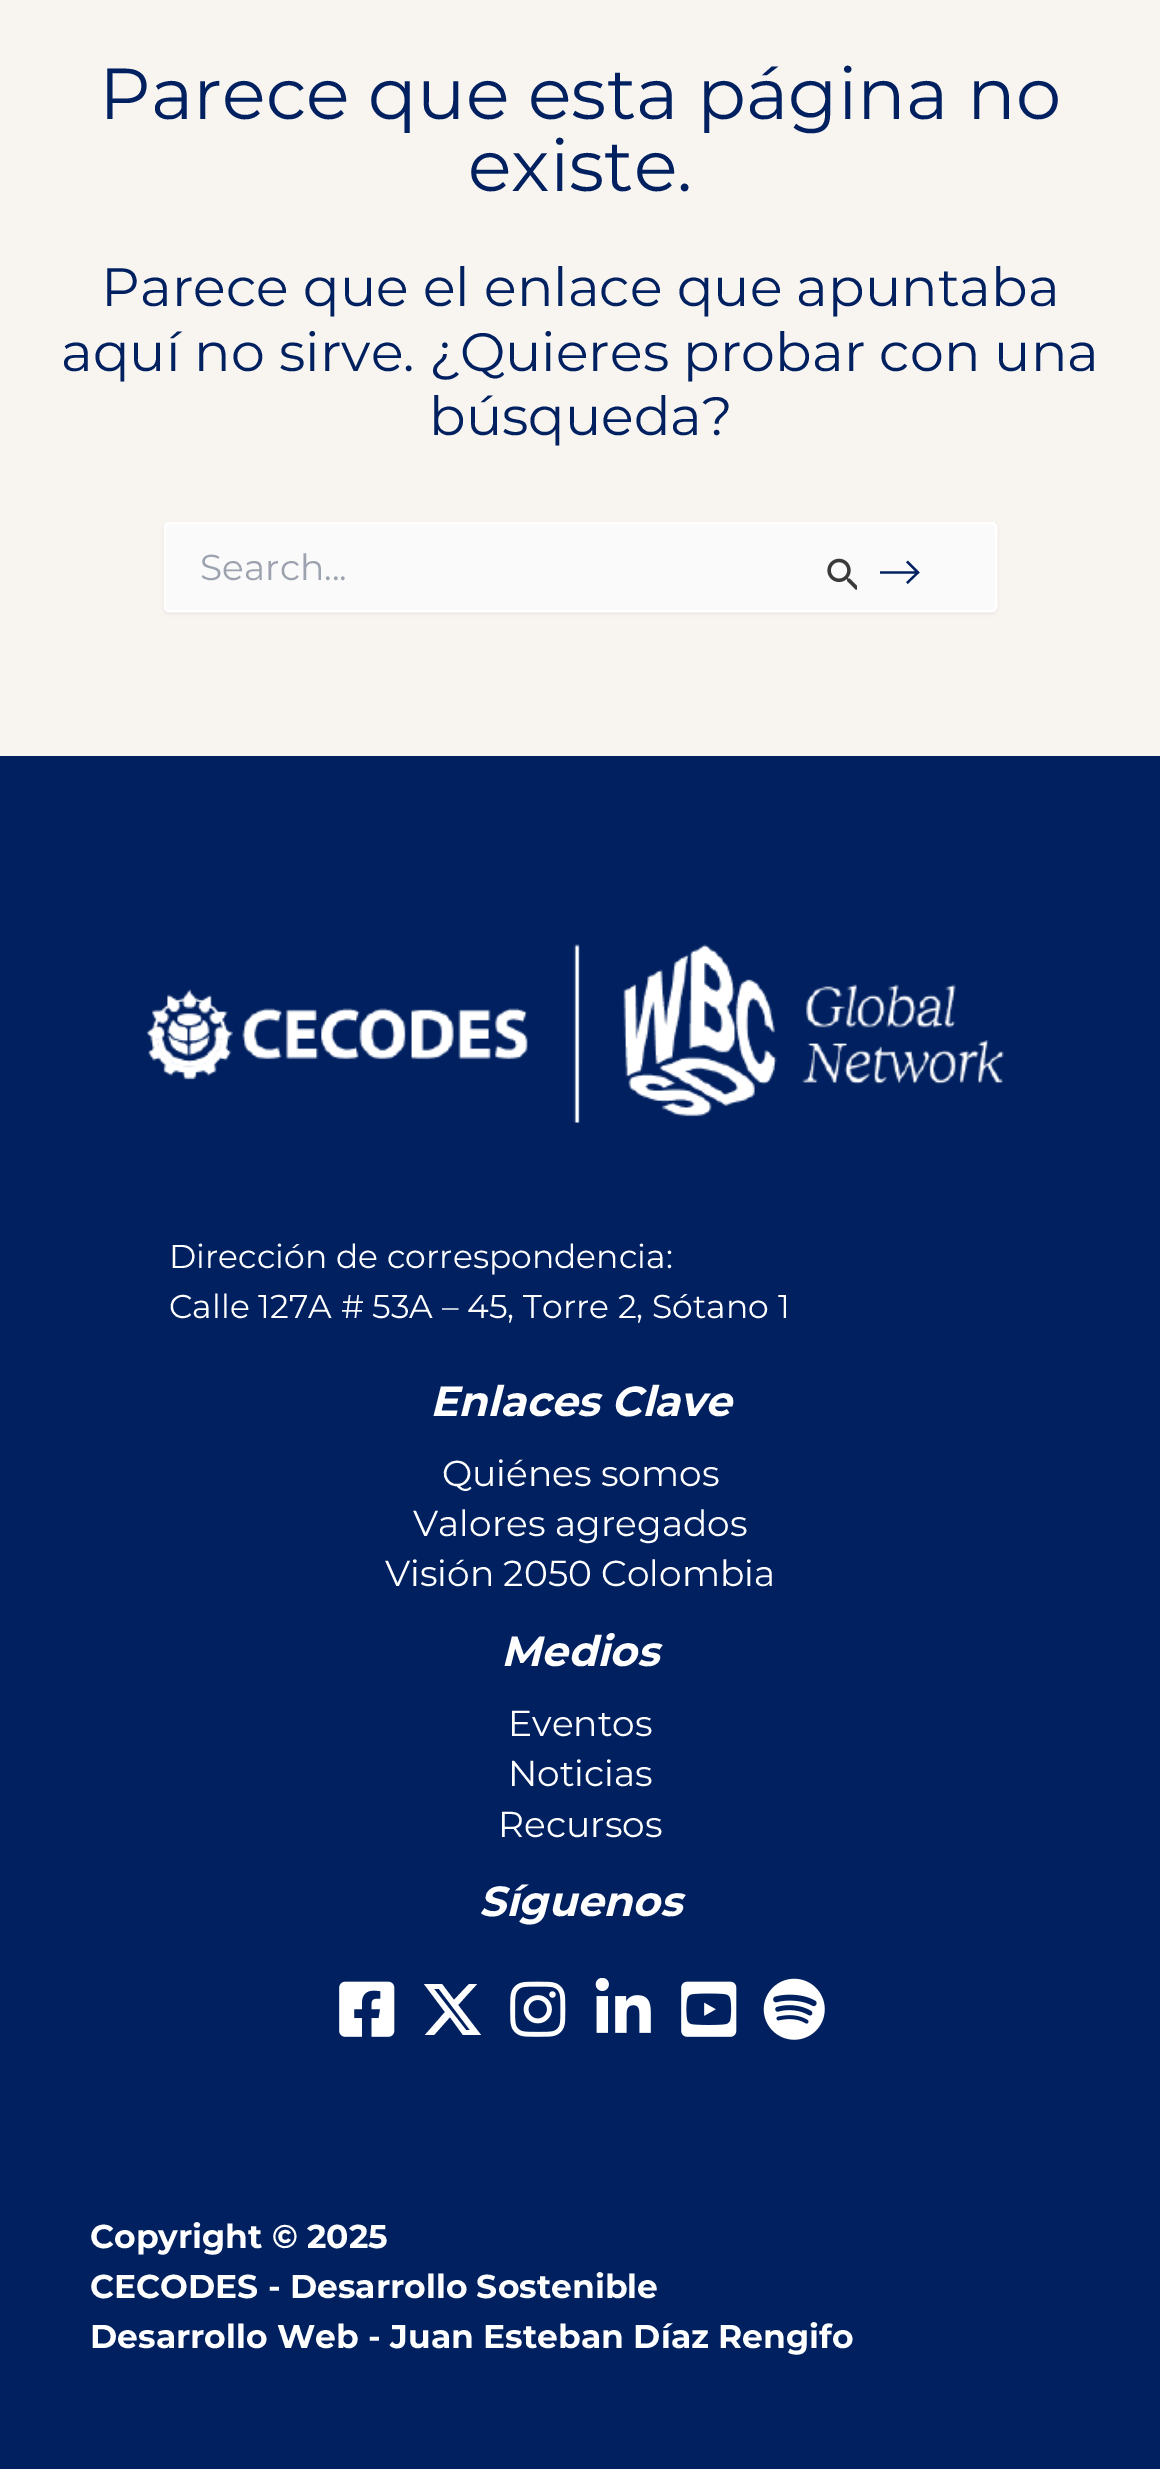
%!PS
<< /PageSize [1160 2469] /PageUsesTransparency true >> setpagedevice
/m/moveto load def
/l/rlineto load def
/z/closepath load def
/f/fill load def
/s/stroke load def
/q/gsave load def
/Q_/grestore load def
/w/setlinewidth load def
/C { dup -16 bitshift 255 div exch dup -8 bitshift 255 and 255 div exch 255 and 255 div setrgbcolor } def
/F { [ exch dup neg 0 0 3 -1 roll 0 0 ] selectfont } def
/T { moveto show } def
/R { rectfill } def
/A { dup .setfillconstantalpha .setstrokeconstantalpha } def
/Q { 5 dict begin { /r /h /w /y /x } { exch def } forall
  x r add y moveto x w add y 2 copy h add r arct x w add y h add x 1 index r arct
  x y h add x y r arct x y 2 copy exch w add exch r arct closepath end } def
/S { 12 dict begin { /a /b /q /h /w /y /x } { exch def } forall gsave /was 0 def
  9 -2 -9 { dup b mul 4 div /e exch def 1 sub .425 mul 2.718 exch exp 1 add a .99 .min exch div /now exch def
    1 1 now sub 1 was sub div sub A /was now def
    w h .min e 2 mul add 0 gt { x e sub y e sub w e 2 mul add h e 2 mul add
      q e add b .6 mul add w h .min 2 div e add .min 0 .max Q fill } if } for grestore end } def
/I { 5 dict begin { /h /w /y /x /name } { exch def } forall
  gsave x y translate w h scale
  w h 8 [w 0 0 h 0 0] name (r) file false 3 colorimage grestore end } def
0 .pushpdf14devicefilter
0 2469 translate 1 -1 scale
4 setmiterlimit
16#F8F5F1 C
0 0 1160 2469 R
/Montserrat-Regular 72 F
16#002060 C
(Parece que esta página no) 99 119 T
(existe.) 468 191 T
/Montserrat-Regular 54 F
(Parece que el enlace que apuntaba) 101 306 T
(aquí no sirve. ¿Quieres probar con una) 61 371 T
(búsqueda?) 429 435 T
16#000000 C
164 524 833 90 5 2 .05 S
16#FAFAFA C
165 523 831 88 4 Q q f Q_
16#FFFFFF C
2 w
s
/Montserrat-Regular 36 F
16#9CA3AF C
(Search...) 200 580 T
(1.rgb) 827 558 30 33 I
16#002060 C
2.2 w
880 572.5 m 37.5 0 l 907 561.5 m 11 11 l -11 10.5 l s
0 756 1160 1713 R
(2.rgb) 147 944 857 179 I
/Montserrat-Regular 33 F
16#FFFFFF C
(Dirección de correspondencia:) 169 1268 T
(Calle 127A # 53A – 45, Torre 2, Sótano 1) 169 1318 T
/Montserrat-BoldItalic 42 F
(Enlaces Clave) 430 1416 T
/Montserrat-Regular 36 F
(Quiénes somos) 442 1486 T
(Valores agregados) 413 1536 T
(Visión 2050 Colombia) 385 1586 T
/Montserrat-BoldItalic 42 F
(Medios) 501 1666 T
/Montserrat-Regular 36 F
(Eventos) 508 1736 T
(Noticias) 508 1786 T
(Recursos) 498 1837 T
/Montserrat-BoldItalic 42 F
(Síguenos) 479 1916 T
(3.rgb) 339 1981 56 56 I
469 1984 m 8 0 l -19 21 l 23 30 l -18 0 l -13 -18 l -16 18 l -9 0 l 20 -23 l -21 -28 l 18 0 l 12 16 l z 466 2030 m 4 0 l -31 -41 l -5 0 l z f
(4.rgb) 510 1981 56 56 I
(5.rgb) 595 1978 56 55 I
(6.rgb) 681 1981 56 56 I
(7.rgb) 763 1978 62 62 I
/Montserrat-Bold 33 F
(Copyright © 2025) 90 2248 T
(CECODES - Desarrollo Sostenible) 90 2298 T
(Desarrollo Web - Juan Esteban Díaz Rengifo) 90 2348 T
.poppdf14devicefilter showpage
